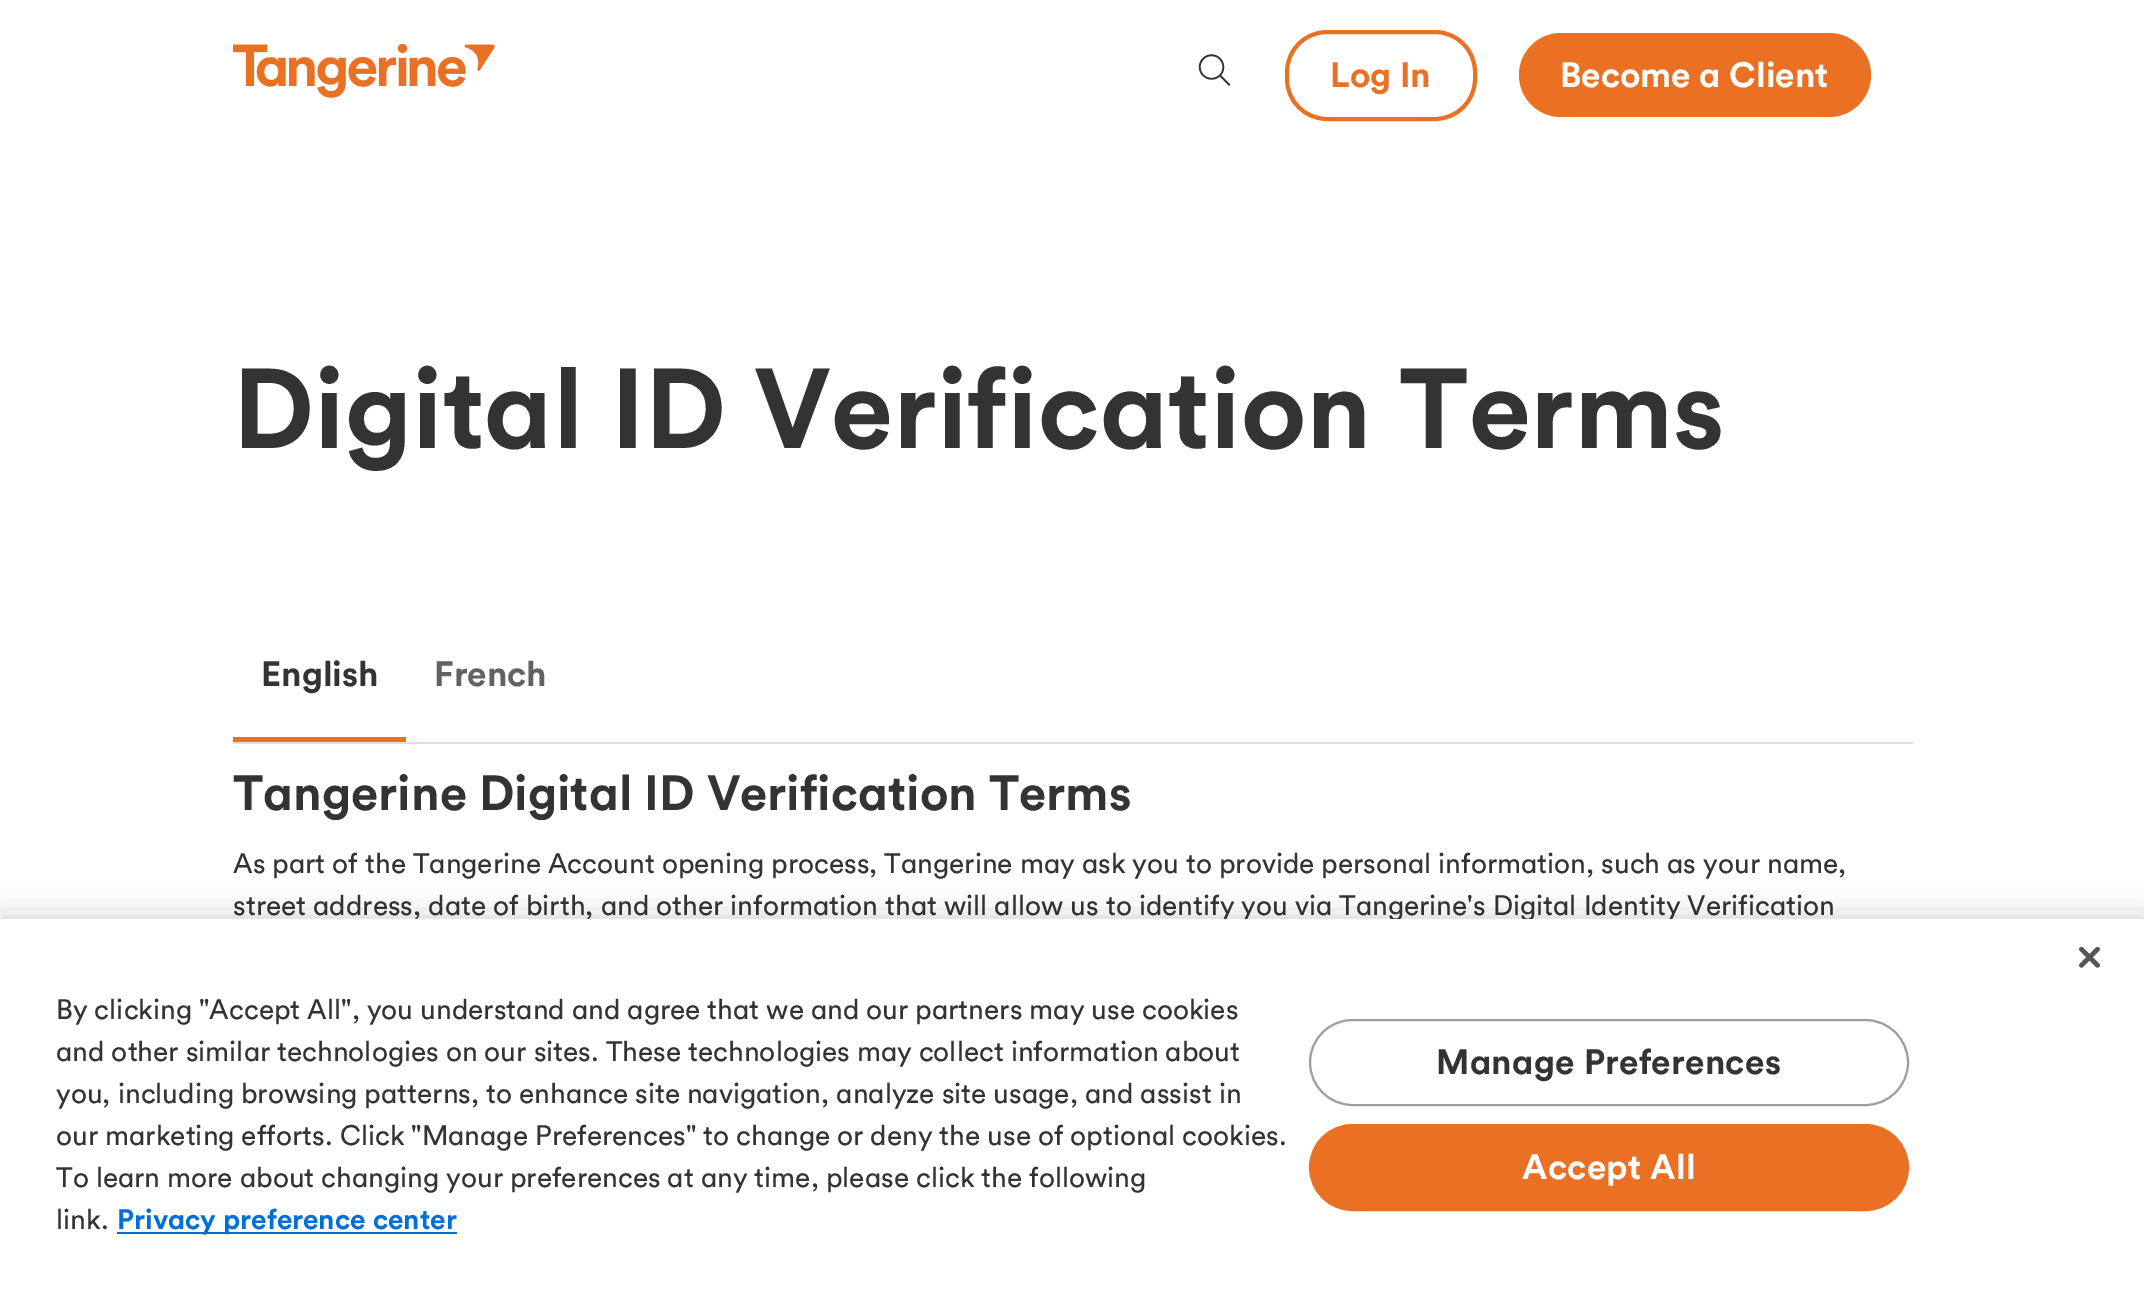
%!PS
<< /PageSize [2144 1301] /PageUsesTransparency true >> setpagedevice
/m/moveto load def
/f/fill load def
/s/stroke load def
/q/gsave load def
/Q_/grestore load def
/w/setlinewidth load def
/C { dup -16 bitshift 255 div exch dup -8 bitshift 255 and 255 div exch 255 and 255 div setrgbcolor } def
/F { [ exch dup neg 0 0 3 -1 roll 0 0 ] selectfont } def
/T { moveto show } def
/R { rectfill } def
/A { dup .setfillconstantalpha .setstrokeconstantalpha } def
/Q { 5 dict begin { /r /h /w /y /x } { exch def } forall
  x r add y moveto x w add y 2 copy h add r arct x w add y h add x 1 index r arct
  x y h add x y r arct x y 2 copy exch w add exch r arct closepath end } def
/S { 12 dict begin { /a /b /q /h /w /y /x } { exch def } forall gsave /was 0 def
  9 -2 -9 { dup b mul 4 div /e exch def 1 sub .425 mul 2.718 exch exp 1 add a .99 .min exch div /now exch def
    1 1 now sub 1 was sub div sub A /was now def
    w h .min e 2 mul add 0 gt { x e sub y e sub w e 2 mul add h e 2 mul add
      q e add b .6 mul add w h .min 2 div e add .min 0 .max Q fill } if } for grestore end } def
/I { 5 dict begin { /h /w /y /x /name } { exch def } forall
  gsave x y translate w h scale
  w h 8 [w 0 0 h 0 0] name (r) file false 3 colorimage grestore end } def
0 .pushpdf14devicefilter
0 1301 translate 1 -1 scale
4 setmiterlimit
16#FFFFFF C
0 0 2144 1301 R
(1.rgb) 233 44 262 54 I
(2.rgb) 1198 54 33 32 I
16#EA7024 C
4 w
1287 32 188 87 40 Q s
/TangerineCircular-Bold 35 F
(Log In) 1330 87 T
1519 33 352 84 42 Q f
16#FFFFFF C
(Become a Client) 1560 87 T
/TangerineCircular-Bold 112 F
16#333333 C
(Digital ID Verification Terms) 233 448 T
16#E0E0E0 C
233 742 1680 2 R
16#EA7024 C
233 737 173 5 R
/TangerineCircular-Bold 35 F
16#333333 C
(English) 261 686 T
16#616161 C
(French) 434 686 T
/TangerineCircular-Bold 49 F
16#333333 C
(Tangerine Digital ID Verification Terms) 233 810 T
/TangerineCircular-Regular 28 F
(As part of the Tangerine Account opening process, Tangerine may ask you to provide personal information, such as your name,) 233 873 T
(street address, date of birth, and other information that will allow us to identify you via Tangerine's Digital Identity Verification) 233 915 T
16#000000 C
0 919 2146 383 0 16 .2 S
16#FFFFFF C
0 919 2144 382 R
(3.rgb) 2079 947 21 21 I
16#333333 C
(By clicking "Accept All", you understand and agree that we and our partners may use cookies) 56 1019 T
(and other similar technologies on our sites. These technologies may collect information about) 56 1061 T
(you, including browsing patterns, to enhance site navigation, analyze site usage, and assist in) 56 1103 T
(our marketing efforts. Click "Manage Preferences" to change or deny the use of optional cookies.) 56 1145 T
(To learn more about changing your preferences at any time, please click the following) 56 1187 T
(link.) 56 1229 T
16#006FD6 C
117 1232 340 2 R
/TangerineCircular-Bold 28 F
(Privacy preference center) 117 1229 T
16#9E9E9E C
2 w
1310 1020 598 85 42.5 Q s
/TangerineCircular-Bold 35 F
16#333333 C
1436 1074 m .3 0 (Manage Preferences) ashow
16#EA7024 C
1310 1125 598 85 42.5 Q q f Q_
s
16#FFFFFF C
1522 1179 m .3 0 (Accept All) ashow
.poppdf14devicefilter showpage
